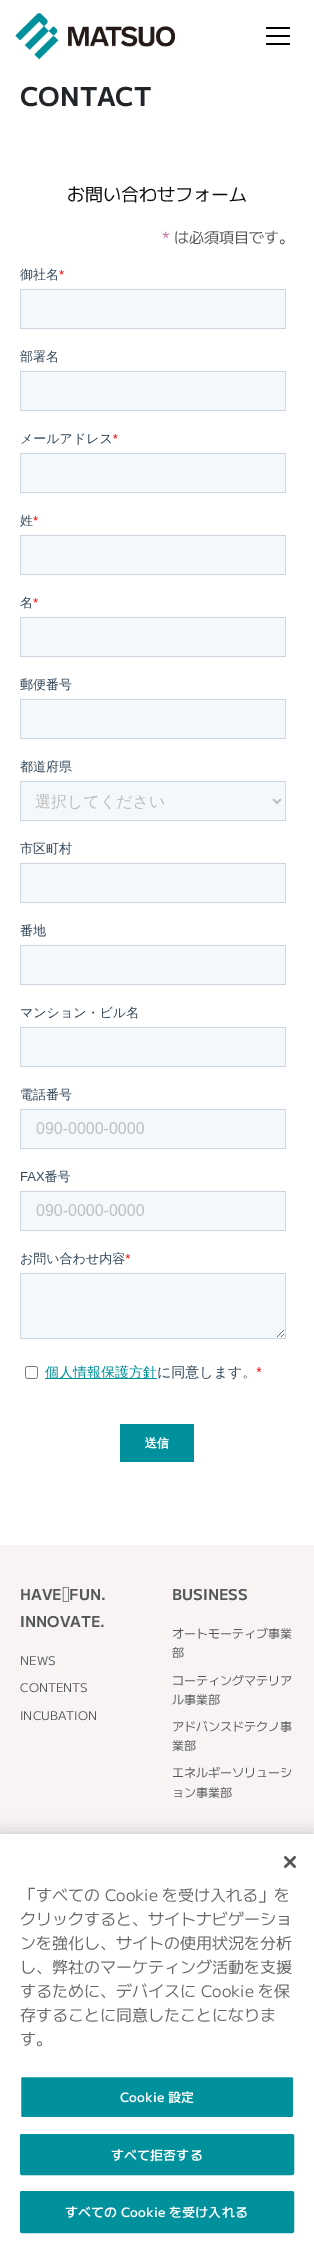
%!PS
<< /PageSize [314 2249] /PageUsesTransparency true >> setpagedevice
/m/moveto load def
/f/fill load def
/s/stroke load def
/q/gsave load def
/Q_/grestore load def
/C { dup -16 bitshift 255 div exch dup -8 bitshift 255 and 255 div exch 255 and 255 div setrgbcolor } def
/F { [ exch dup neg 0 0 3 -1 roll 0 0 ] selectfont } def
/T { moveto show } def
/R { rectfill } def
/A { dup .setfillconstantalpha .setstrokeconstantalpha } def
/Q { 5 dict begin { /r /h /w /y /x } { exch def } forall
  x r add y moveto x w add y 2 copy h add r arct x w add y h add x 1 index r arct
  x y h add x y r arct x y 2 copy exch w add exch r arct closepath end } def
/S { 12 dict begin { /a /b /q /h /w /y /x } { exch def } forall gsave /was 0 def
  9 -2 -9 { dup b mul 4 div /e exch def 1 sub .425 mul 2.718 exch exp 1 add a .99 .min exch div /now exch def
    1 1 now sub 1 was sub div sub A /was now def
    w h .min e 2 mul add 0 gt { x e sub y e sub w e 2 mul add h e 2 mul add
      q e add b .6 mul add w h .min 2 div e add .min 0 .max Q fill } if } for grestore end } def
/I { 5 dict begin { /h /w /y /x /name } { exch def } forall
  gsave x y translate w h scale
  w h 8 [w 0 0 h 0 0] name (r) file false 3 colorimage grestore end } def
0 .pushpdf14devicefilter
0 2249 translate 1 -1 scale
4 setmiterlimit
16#FFFFFF C
0 0 314 2249 R
(1.rgb) 15 12 160 48 I
16#000000 C
266 27 24 2 1 Q f
266 35 24 2 1 Q f
266 43 24 2 1 Q f
/MPLUS1-Bold 26 F
16#212529 C
(CONTACT) 20 106 T
/MPLUS1-Regular 18 F
16#0C0C0C C
(お問い合わせフォーム) 67 201 T
/MPLUS1-Regular 15 F
16#C96E9C C
(*) 162 243 T
16#54585A C
(は必須項目です。) 174 243 T
(2.rgb) 20 268 266 1194 I
16#F8F4F3 C
0 1545 314 289 R
/MPLUS1-Bold 15 F
16#54585A C
(HAVE FUN.) 20 1600 T
(INNOVATE.) 20 1627 T
/MPLUS1-Regular 12 F
(NEWS) 20 1665 T
(CONTENTS) 20 1692 T
(INCUBATION) 20 1720 T
/MPLUS1-Bold 15 F
(BUSINESS) 172 1600 T
/MPLUS1-Regular 12 F
(オートモーティブ事業) 172 1638 T
(部) 172 1657 T
(コーティングマテリア) 172 1685 T
(ル事業部) 172 1704 T
(アドバンスドテクノ事) 172 1731 T
(業部) 172 1750 T
(エネルギーソリューシ) 172 1777 T
(ョン事業部) 172 1797 T
16#000000 C
0 1834 314 415 0 9 .2 S
16#FFFFFF C
0 1834 314 415 R
(3.rgb) 284 1856 12 12 I
/MPLUS1-Regular 16 F
16#696969 C
(「すべての Cookie を受け入れる」を) 20 1901 T
(クリックすると、サイトナビゲーショ) 20 1925 T
(ンを強化し、サイトの使用状況を分析) 20 1949 T
(し、弊社のマーケティング活動を支援) 20 1973 T
(するために、デバイスに Cookie を保) 20 1997 T
(存することに同意したことになりま) 20 2021 T
(す。) 20 2045 T
16#00919C C
20.5 2076.5 273 41 1.5 Q q f Q_
16#FFFFFF C
s
/MPLUS1-SemiBold 13 F
120 2102 m .1 0 (Cookie 設定) ashow
16#00919C C
20.5 2134.5 273 40 1.5 Q q f Q_
s
16#FFFFFF C
111 2160 m .1 0 (すべて拒否する) ashow
16#00919C C
20.5 2191.5 273 41 1.5 Q q f Q_
s
16#FFFFFF C
65 2217 m .1 0 (すべての Cookie を受け入れる) ashow
.poppdf14devicefilter showpage
